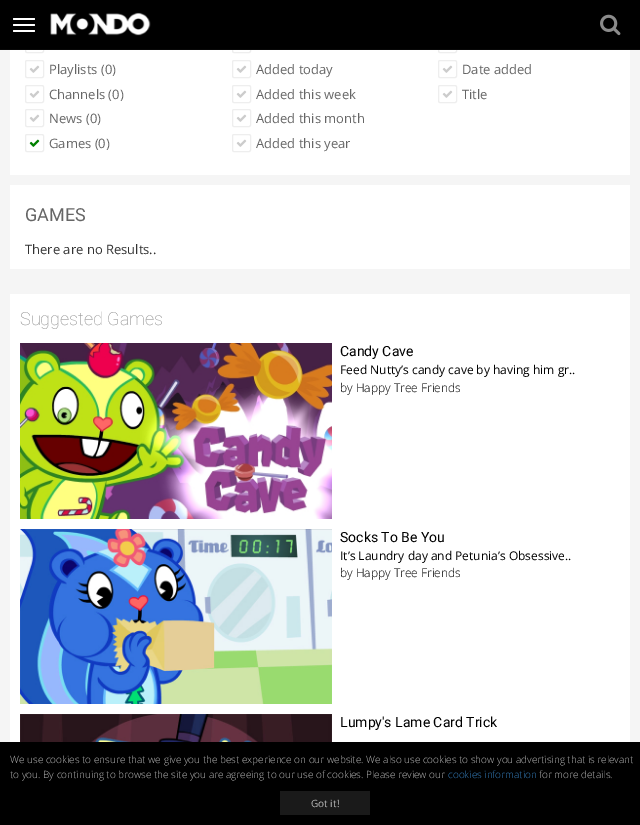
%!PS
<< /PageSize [640 825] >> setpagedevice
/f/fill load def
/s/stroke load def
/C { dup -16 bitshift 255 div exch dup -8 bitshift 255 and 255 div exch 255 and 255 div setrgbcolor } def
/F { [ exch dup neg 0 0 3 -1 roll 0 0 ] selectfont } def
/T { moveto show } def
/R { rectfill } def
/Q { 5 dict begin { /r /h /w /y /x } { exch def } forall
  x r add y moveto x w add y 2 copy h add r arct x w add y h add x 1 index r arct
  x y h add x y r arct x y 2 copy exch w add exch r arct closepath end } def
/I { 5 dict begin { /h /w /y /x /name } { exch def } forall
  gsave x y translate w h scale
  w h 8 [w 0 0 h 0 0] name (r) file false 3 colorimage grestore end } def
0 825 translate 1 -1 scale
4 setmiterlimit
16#F5F5F5 C
0 0 640 825 R
16#FFFFFF C
10 50 620 125 R
16#EEEEEE C
25.5 35.5 18 17 1.5 Q s
232.5 35.5 18 17 1.5 Q s
438.5 35.5 18 17 1.5 Q s
16#000000 C
0 0 640 49 R
16#080808 C
0 49 640 1 R
16#FFFFFF C
13 18 22 2 1 Q f
13 24 22 2 1 Q f
13 30 22 2 1 Q f
(1.rgb) 50 12 101 24 I
(2.rgb) 600 14 21 22 I
16#EEEEEE C
25.5 60.5 18 17 1.5 Q s
(3.rgb) 29 65 11 8 I
/OpenSans-Regular 13 F
16#666666 C
(Playlists \(0\)) 49 74 T
16#EEEEEE C
25.5 85.5 18 17 1.5 Q s
(3.rgb) 29 90 11 8 I
16#666666 C
(Channels \(0\)) 49 99 T
16#EEEEEE C
25.5 109.5 18 17 1.5 Q s
(3.rgb) 29 114 11 8 I
16#666666 C
(News \(0\)) 49 123 T
16#EEEEEE C
25.5 134.5 18 17 1.5 Q s
(4.rgb) 29 139 11 8 I
16#666666 C
(Games \(0\)) 49 148 T
16#EEEEEE C
232.5 60.5 18 17 1.5 Q s
(3.rgb) 236 65 11 8 I
16#666666 C
(Added today) 256 74 T
16#EEEEEE C
232.5 85.5 18 17 1.5 Q s
(3.rgb) 236 90 11 8 I
16#666666 C
(Added this week) 256 99 T
16#EEEEEE C
232.5 109.5 18 17 1.5 Q s
(3.rgb) 236 114 11 8 I
16#666666 C
(Added this month) 256 123 T
16#EEEEEE C
232.5 134.5 18 17 1.5 Q s
(3.rgb) 236 139 11 8 I
16#666666 C
(Added this year) 256 148 T
16#EEEEEE C
438.5 60.5 18 17 1.5 Q s
(3.rgb) 442 65 11 8 I
16#666666 C
(Date added) 462 74 T
16#EEEEEE C
438.5 85.5 18 17 1.5 Q s
(3.rgb) 442 90 11 8 I
16#666666 C
(Title) 462 99 T
16#FFFFFF C
10 185 620 84 R
/Roboto-Regular 18 F
16#666666 C
(GAMES) 25 221 T
/OpenSans-Regular 13 F
16#333333 C
(There are no Results..) 25 254 T
16#FFFFFF C
10 294 620 448 R
/Roboto-Thin 18 F
16#8B8B8B C
(Suggested Games) 20 325 T
(5.rgb) 20 343 312 176 I
/Roboto-Regular 14 F
16#000000 C
(Candy Cave) 340 356 T
/OpenSans-Regular 12 F
(Feed Nutty’s candy cave by having him gr..) 340 374 T
/OpenSans-Light 12 F
(by Happy Tree Friends) 340 392 T
(6.rgb) 20 529 312 175 I
/Roboto-Regular 14 F
(Socks To Be You) 340 542 T
/OpenSans-Regular 12 F
(It’s Laundry day and Petunia’s Obsessive..) 340 560 T
/OpenSans-Light 12 F
(by Happy Tree Friends) 340 577 T
(7.rgb) 20 714 312 28 I
/Roboto-Regular 14 F
(Lumpy's Lame Card Trick) 340 727 T
0 742 640 83 R
/OpenSans-Light 10 F
16#B3B3B3 C
(We use cookies to ensure that we give you the best experience on our website. We also use cookies to show you advertising that is relevant) 10 763 T
(to you. By continuing to browse the site you are agreeing to our use of cookies. Please review our) 10 778 T
16#337AB7 C
(cookies information) 448 778 T
16#B3B3B3 C
(for more details.) 539 778 T
16#1A1A1A C
280 791 90 24 R
/OpenSans-Regular 10 F
16#BABABA C
(Got it!) 311 807 T
showpage
